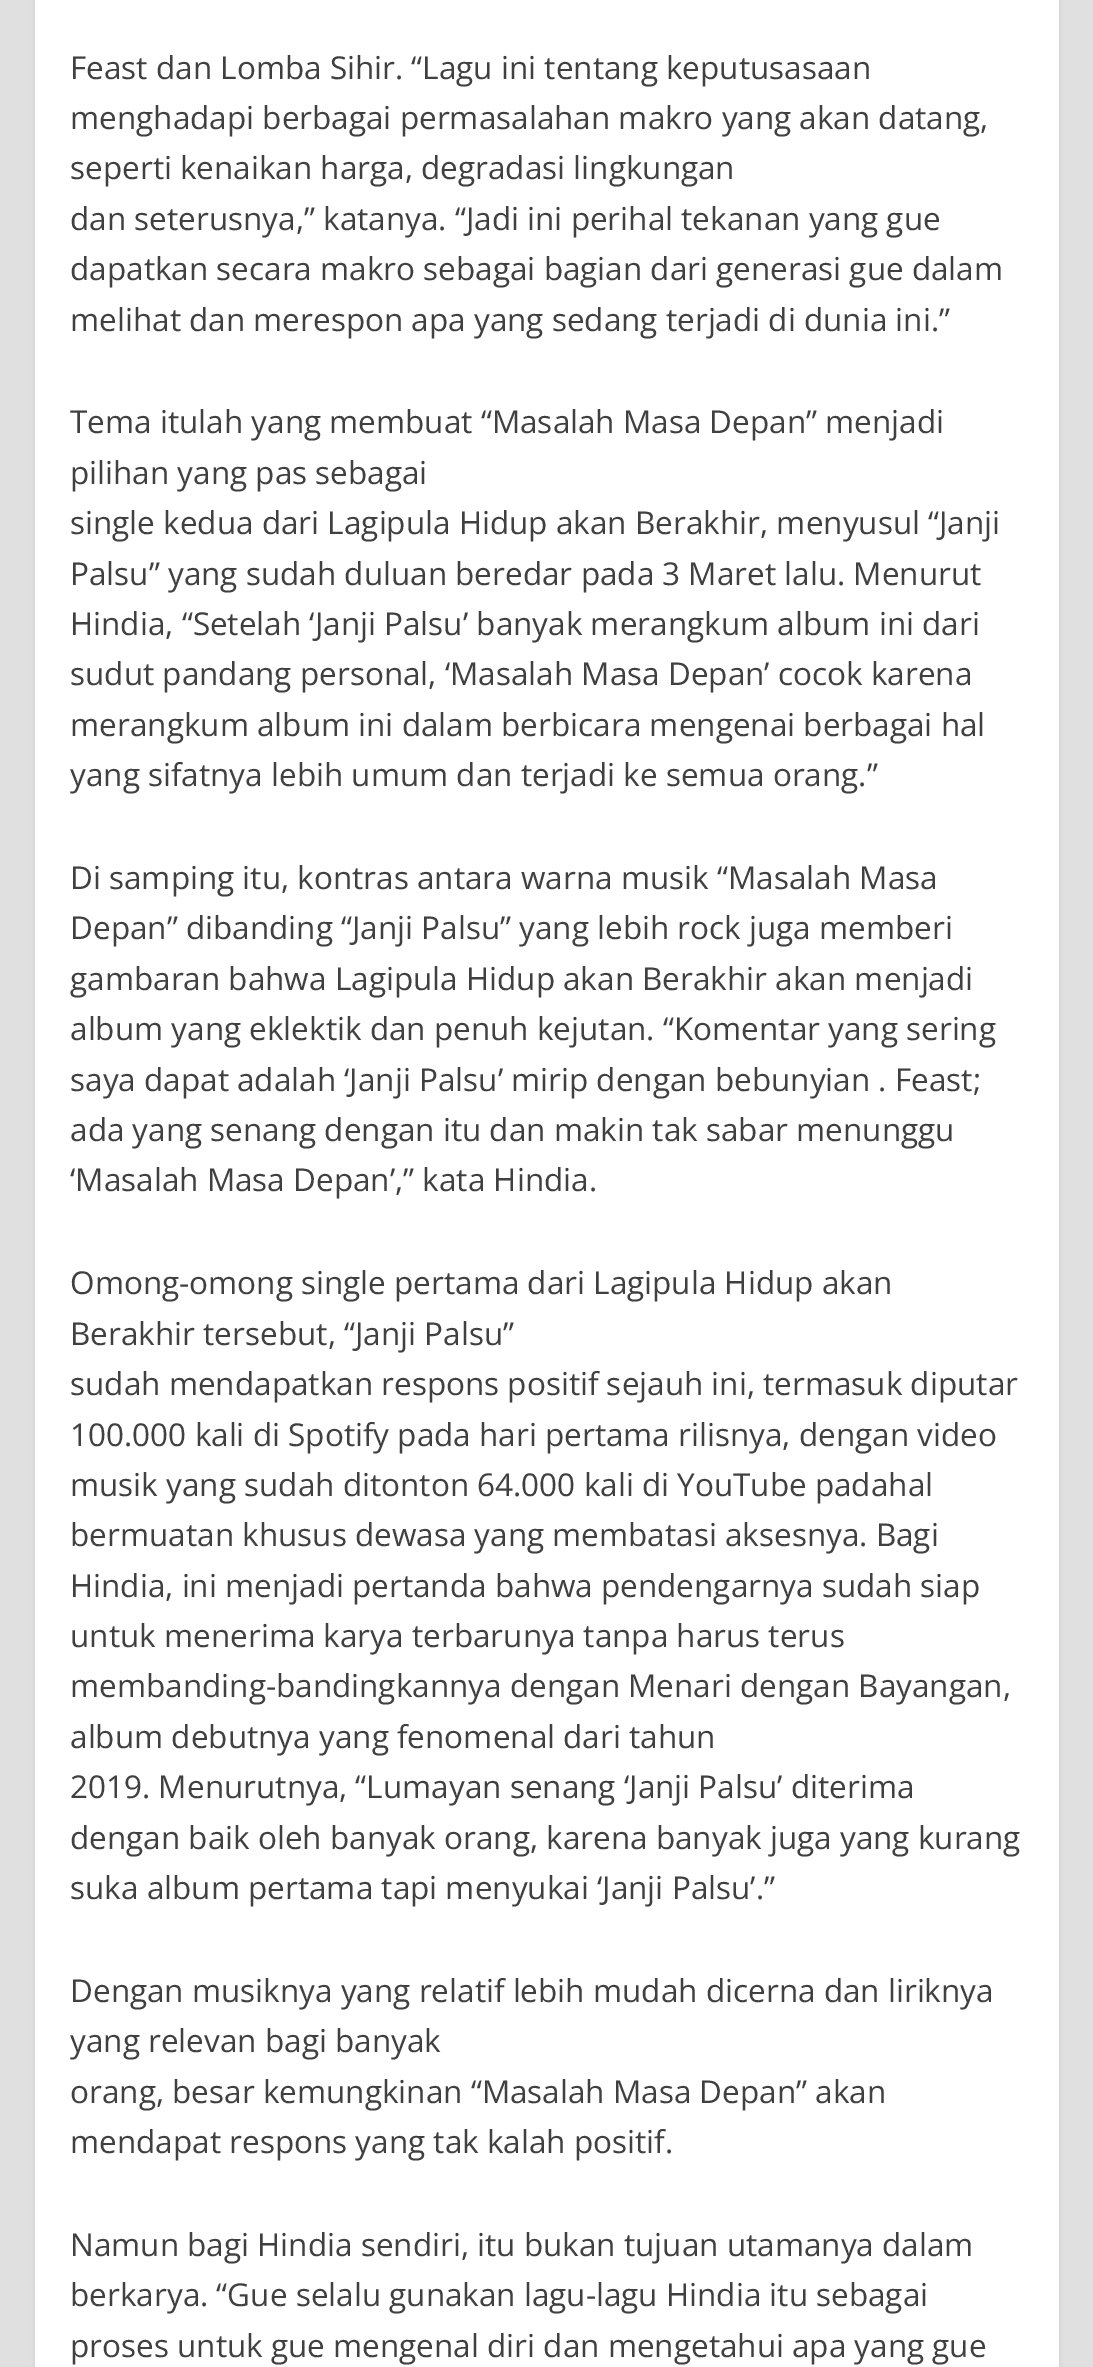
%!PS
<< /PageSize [1093 2367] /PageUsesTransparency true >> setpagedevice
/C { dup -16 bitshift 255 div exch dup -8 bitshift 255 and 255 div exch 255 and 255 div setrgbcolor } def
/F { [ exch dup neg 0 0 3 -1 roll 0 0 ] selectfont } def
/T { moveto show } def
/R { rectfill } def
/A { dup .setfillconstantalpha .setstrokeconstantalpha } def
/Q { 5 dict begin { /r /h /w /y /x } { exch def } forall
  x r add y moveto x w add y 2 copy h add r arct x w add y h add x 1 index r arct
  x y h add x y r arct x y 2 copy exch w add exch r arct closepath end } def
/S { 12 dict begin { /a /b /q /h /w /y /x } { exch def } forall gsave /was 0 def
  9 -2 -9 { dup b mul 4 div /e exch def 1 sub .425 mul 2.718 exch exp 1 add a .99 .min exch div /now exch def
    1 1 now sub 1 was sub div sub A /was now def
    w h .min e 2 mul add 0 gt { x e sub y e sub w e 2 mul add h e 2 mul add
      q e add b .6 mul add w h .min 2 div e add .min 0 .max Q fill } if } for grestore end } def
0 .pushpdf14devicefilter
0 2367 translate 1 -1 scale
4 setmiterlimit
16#E0E0E0 C
0 0 1093 2367 R
16#000000 C
35 -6 1024 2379 0 2 .08 S
16#FFFFFF C
35 0 1024 2367 R
/OpenSans-Regular 31.5 F
16#404040 C
(Feast dan Lomba Sihir. “Lagu ini tentang keputusasaan) 70 79 T
(menghadapi berbagai permasalahan makro yang akan datang,) 70 129 T
(seperti kenaikan harga, degradasi lingkungan) 70 179 T
(dan seterusnya,” katanya. “Jadi ini perihal tekanan yang gue) 70 230 T
(dapatkan secara makro sebagai bagian dari generasi gue dalam) 70 280 T
(melihat dan merespon apa yang sedang terjadi di dunia ini.”) 70 331 T
(Tema itulah yang membuat “Masalah Masa Depan” menjadi) 70 433 T
(pilihan yang pas sebagai) 70 484 T
(single kedua dari Lagipula Hidup akan Berakhir, menyusul “Janji) 70 534 T
(Palsu” yang sudah duluan beredar pada 3 Maret lalu. Menurut) 70 585 T
(Hindia, “Setelah ‘Janji Palsu’ banyak merangkum album ini dari) 70 635 T
(sudut pandang personal, ‘Masalah Masa Depan’ cocok karena) 70 685 T
(merangkum album ini dalam berbicara mengenai berbagai hal) 70 736 T
(yang sifatnya lebih umum dan terjadi ke semua orang.”) 70 786 T
(Di samping itu, kontras antara warna musik “Masalah Masa) 70 889 T
(Depan” dibanding “Janji Palsu” yang lebih rock juga memberi) 70 939 T
(gambaran bahwa Lagipula Hidup akan Berakhir akan menjadi) 70 990 T
(album yang eklektik dan penuh kejutan. “Komentar yang sering) 70 1040 T
(saya dapat adalah ‘Janji Palsu’ mirip dengan bebunyian . Feast;) 70 1091 T
(ada yang senang dengan itu dan makin tak sabar menunggu) 70 1141 T
(‘Masalah Masa Depan’,” kata Hindia.) 70 1191 T
(Omong-omong single pertama dari Lagipula Hidup akan) 70 1294 T
(Berakhir tersebut, “Janji Palsu”) 70 1345 T
(sudah mendapatkan respons positif sejauh ini, termasuk diputar) 70 1395 T
(100.000 kali di Spotify pada hari pertama rilisnya, dengan video) 70 1446 T
(musik yang sudah ditonton 64.000 kali di YouTube padahal) 70 1496 T
(bermuatan khusus dewasa yang membatasi aksesnya. Bagi) 70 1546 T
(Hindia, ini menjadi pertanda bahwa pendengarnya sudah siap) 70 1597 T
(untuk menerima karya terbarunya tanpa harus terus) 70 1647 T
(membanding-bandingkannya dengan Menari dengan Bayangan,) 70 1697 T
(album debutnya yang fenomenal dari tahun) 70 1748 T
(2019. Menurutnya, “Lumayan senang ‘Janji Palsu’ diterima) 70 1798 T
(dengan baik oleh banyak orang, karena banyak juga yang kurang) 70 1849 T
(suka album pertama tapi menyukai ‘Janji Palsu’.”) 70 1899 T
(Dengan musiknya yang relatif lebih mudah dicerna dan liriknya) 70 2002 T
(yang relevan bagi banyak) 70 2052 T
(orang, besar kemungkinan “Masalah Masa Depan” akan) 70 2103 T
(mendapat respons yang tak kalah positif.) 70 2153 T
(Namun bagi Hindia sendiri, itu bukan tujuan utamanya dalam) 70 2256 T
(berkarya. “Gue selalu gunakan lagu-lagu Hindia itu sebagai) 70 2306 T
(proses untuk gue mengenal diri dan mengetahui apa yang gue) 70 2357 T
.poppdf14devicefilter showpage
